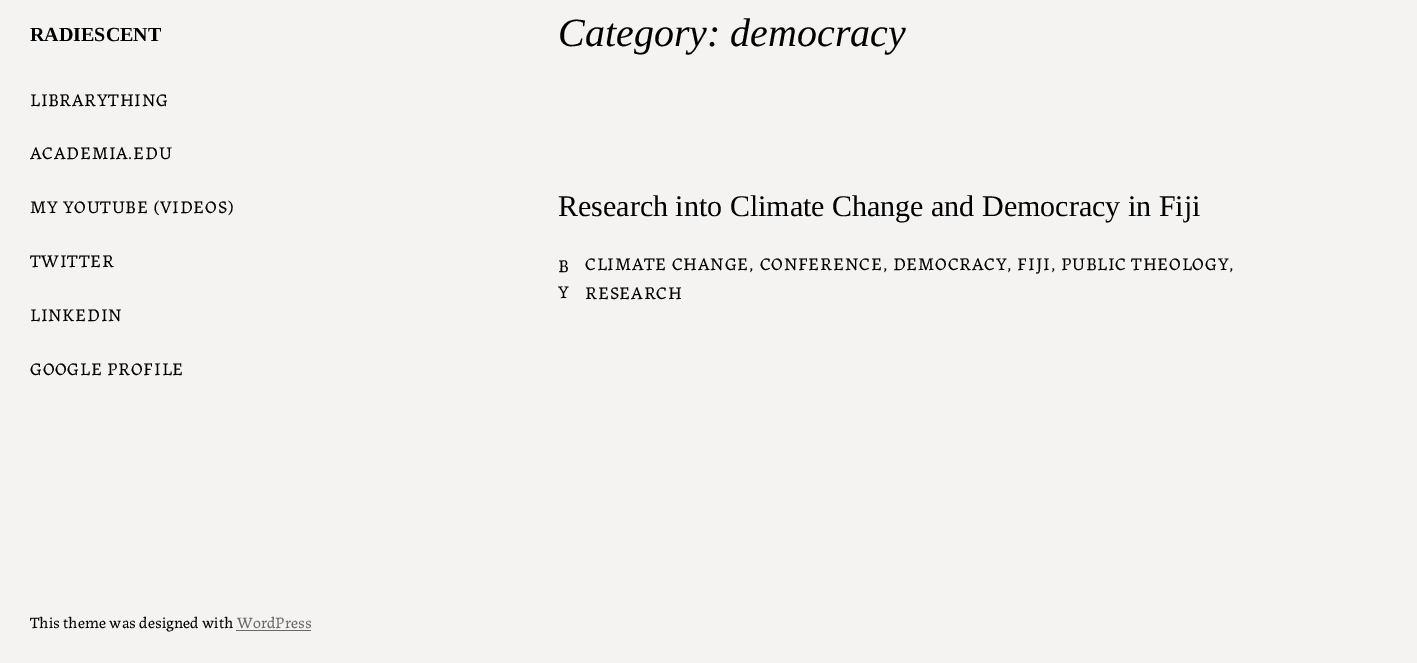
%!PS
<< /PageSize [1417 663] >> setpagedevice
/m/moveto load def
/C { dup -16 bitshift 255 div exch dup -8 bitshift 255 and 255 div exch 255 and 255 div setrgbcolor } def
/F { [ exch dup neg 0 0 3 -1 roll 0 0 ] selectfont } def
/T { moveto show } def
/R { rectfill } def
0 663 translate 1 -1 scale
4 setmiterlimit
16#F5F3F1 C
0 0 1417 663 R
/LiberationSerif-Bold 20 F
16#000000 C
(RADIESCENT) 30 41 T
/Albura-Regular 18 F
30 106 m .72 0 (LIBRARYTHING) ashow
30 159 m .72 0 (ACADEMIA.EDU) ashow
30 213 m .72 0 (MY YOUTUBE \(VIDEOS\)) ashow
30 267 m .72 0 (TWITTER) ashow
30 321 m .72 0 (LINKEDIN) ashow
30 375 m .72 0 (GOOGLE PROFILE) ashow
/LiberationSerif-Italic 40 F
(Category: democracy) 558 46 T
/LiberationSerif-Regular 30 F
(Research into Climate Change and Democracy in Fiji) 558 216 T
/Albura-Regular 18 F
(B) 558 272 T
(Y) 558 298 T
585 270 m .72 0 (CLIMATE CHANGE, CONFERENCE, DEMOCRACY, FIJI, PUBLIC THEOLOGY,) ashow
585 299 m .72 0 (RESEARCH) ashow
/Albura-Regular 16 F
(This theme was designed with) 30 628 T
16#6D6466 C
(WordPress) 237 628 T
236 630 75 1 R
showpage
